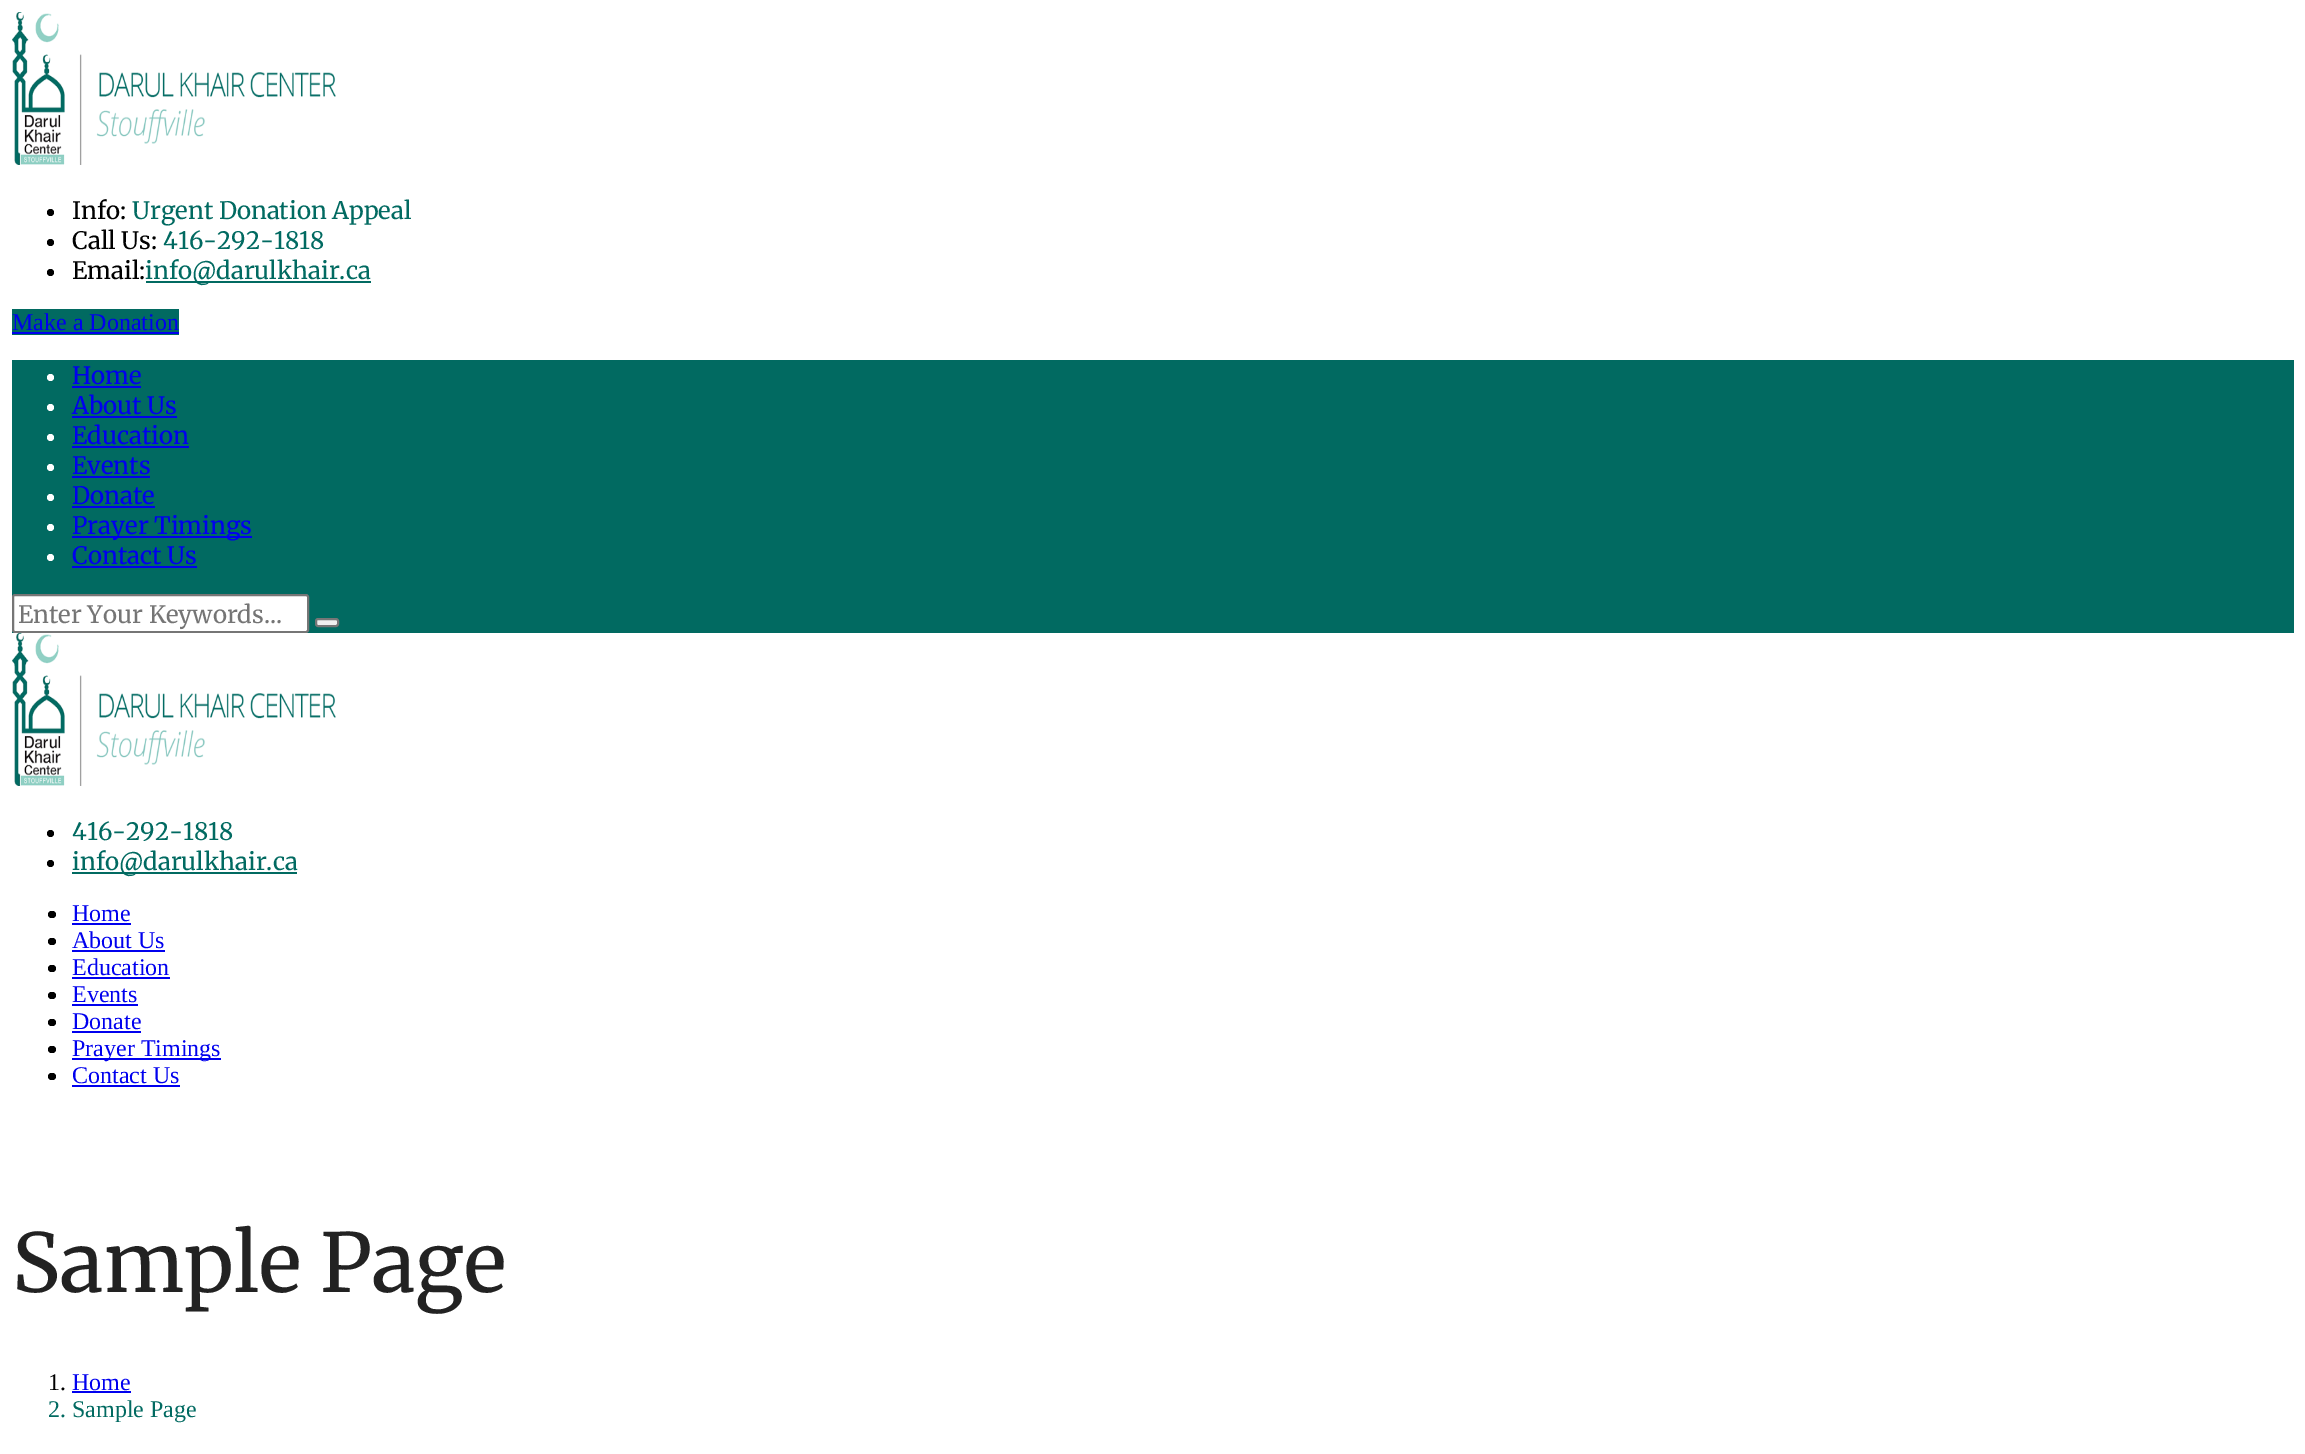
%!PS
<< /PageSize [2305 1454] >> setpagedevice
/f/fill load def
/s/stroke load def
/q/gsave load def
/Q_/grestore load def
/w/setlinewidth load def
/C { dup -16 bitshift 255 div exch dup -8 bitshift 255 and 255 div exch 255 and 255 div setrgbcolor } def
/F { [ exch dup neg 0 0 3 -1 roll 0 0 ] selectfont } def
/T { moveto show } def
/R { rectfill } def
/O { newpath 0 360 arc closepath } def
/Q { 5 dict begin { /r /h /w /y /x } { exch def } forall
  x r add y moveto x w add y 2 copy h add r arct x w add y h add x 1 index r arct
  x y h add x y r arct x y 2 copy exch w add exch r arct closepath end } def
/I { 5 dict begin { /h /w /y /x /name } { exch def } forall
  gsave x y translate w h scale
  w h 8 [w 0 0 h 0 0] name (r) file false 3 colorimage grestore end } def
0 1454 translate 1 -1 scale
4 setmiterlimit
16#FFFFFF C
0 0 2305 1454 R
(1.rgb) 12 12 324 153 I
16#000000 C
50.5 212.5 3.5 O f
/Merriweather-Regular 24 F
(Info:) 72 219 T
16#016A61 C
(Urgent Donation Appeal) 132 219 T
16#000000 C
50.5 242.5 3.5 O f
(Call Us:) 72 249 T
16#016A61 C
(416-292-1818) 163 249 T
16#000000 C
50.5 272.5 3.5 O f
(Email:) 72 279 T
16#016A61 C
146 281 225 2 R
(info@darulkhair.ca) 145 279 T
12 309 167 26 R
/LiberationSerif-Regular 24 F
16#0000EE C
(Make a Donation) 12 330 T
12 332 167 2 R
16#016A61 C
12 360 2282 273 R
16#FFFFFF C
50.5 377.5 3.5 O f
/Merriweather-Regular 24 F
16#0000EE C
(Home) 72 384 T
72 386 69 2 R
16#FFFFFF C
50.5 407.5 3.5 O f
16#0000EE C
(About Us) 72 414 T
72 416 105 2 R
16#FFFFFF C
50.5 437.5 3.5 O f
16#0000EE C
(Education) 72 444 T
72 446 117 2 R
16#FFFFFF C
50.5 467.5 3.5 O f
16#0000EE C
(Events) 72 474 T
72 476 78 2 R
16#FFFFFF C
50.5 497.5 3.5 O f
16#0000EE C
(Donate) 72 504 T
72 506 83 2 R
16#FFFFFF C
50.5 527.5 3.5 O f
16#0000EE C
72 536 180 2 R
(Prayer Timings) 72 534 T
16#FFFFFF C
50.5 557.5 3.5 O f
16#0000EE C
(Contact Us) 72 564 T
72 566 125 2 R
16#FFFFFF C
13 595 295 37 2 Q q f Q_
16#767676 C
2 w
s
16#757575 C
(Enter Your Keywords...) 18 623 T
16#EFEFEF C
316 619 22 7 2 Q q f Q_
16#767676 C
s
(2.rgb) 12 633 324 153 I
16#000000 C
50.5 833.5 3.5 O f
16#016A61 C
(416-292-1818) 72 840 T
16#000000 C
50.5 863.5 3.5 O f
16#016A61 C
72 872 225 2 R
(info@darulkhair.ca) 72 870 T
16#000000 C
48 911 8 7 3.5 Q f
/LiberationSerif-Regular 24 F
16#0000EE C
(Home) 72 921 T
72 923 59 2 R
16#000000 C
48 938 8 7 3.5 Q f
16#0000EE C
(About Us) 72 948 T
72 950 93 2 R
16#000000 C
48 965 8 7 3.5 Q f
16#0000EE C
(Education) 72 975 T
72 977 98 2 R
16#000000 C
48 992 8 7 3.5 Q f
16#0000EE C
(Events) 72 1002 T
72 1004 66 2 R
16#000000 C
48 1019 8 7 3.5 Q f
16#0000EE C
(Donate) 72 1029 T
72 1031 69 2 R
16#000000 C
48 1046 8 7 3.5 Q f
16#0000EE C
72 1058 149 2 R
(Prayer Timings) 72 1056 T
16#000000 C
48 1073 8 7 3.5 Q f
16#0000EE C
(Contact Us) 72 1083 T
72 1085 108 2 R
/Merriweather-Regular 81 F
16#222222 C
(Sample Page) 12 1292 T
/LiberationSerif-Regular 24 F
16#000000 C
(1.) 48 1390 T
16#0000EE C
(Home) 72 1390 T
72 1391 59 2 R
16#016A61 C
(2. Sample Page) 48 1417 T
showpage
